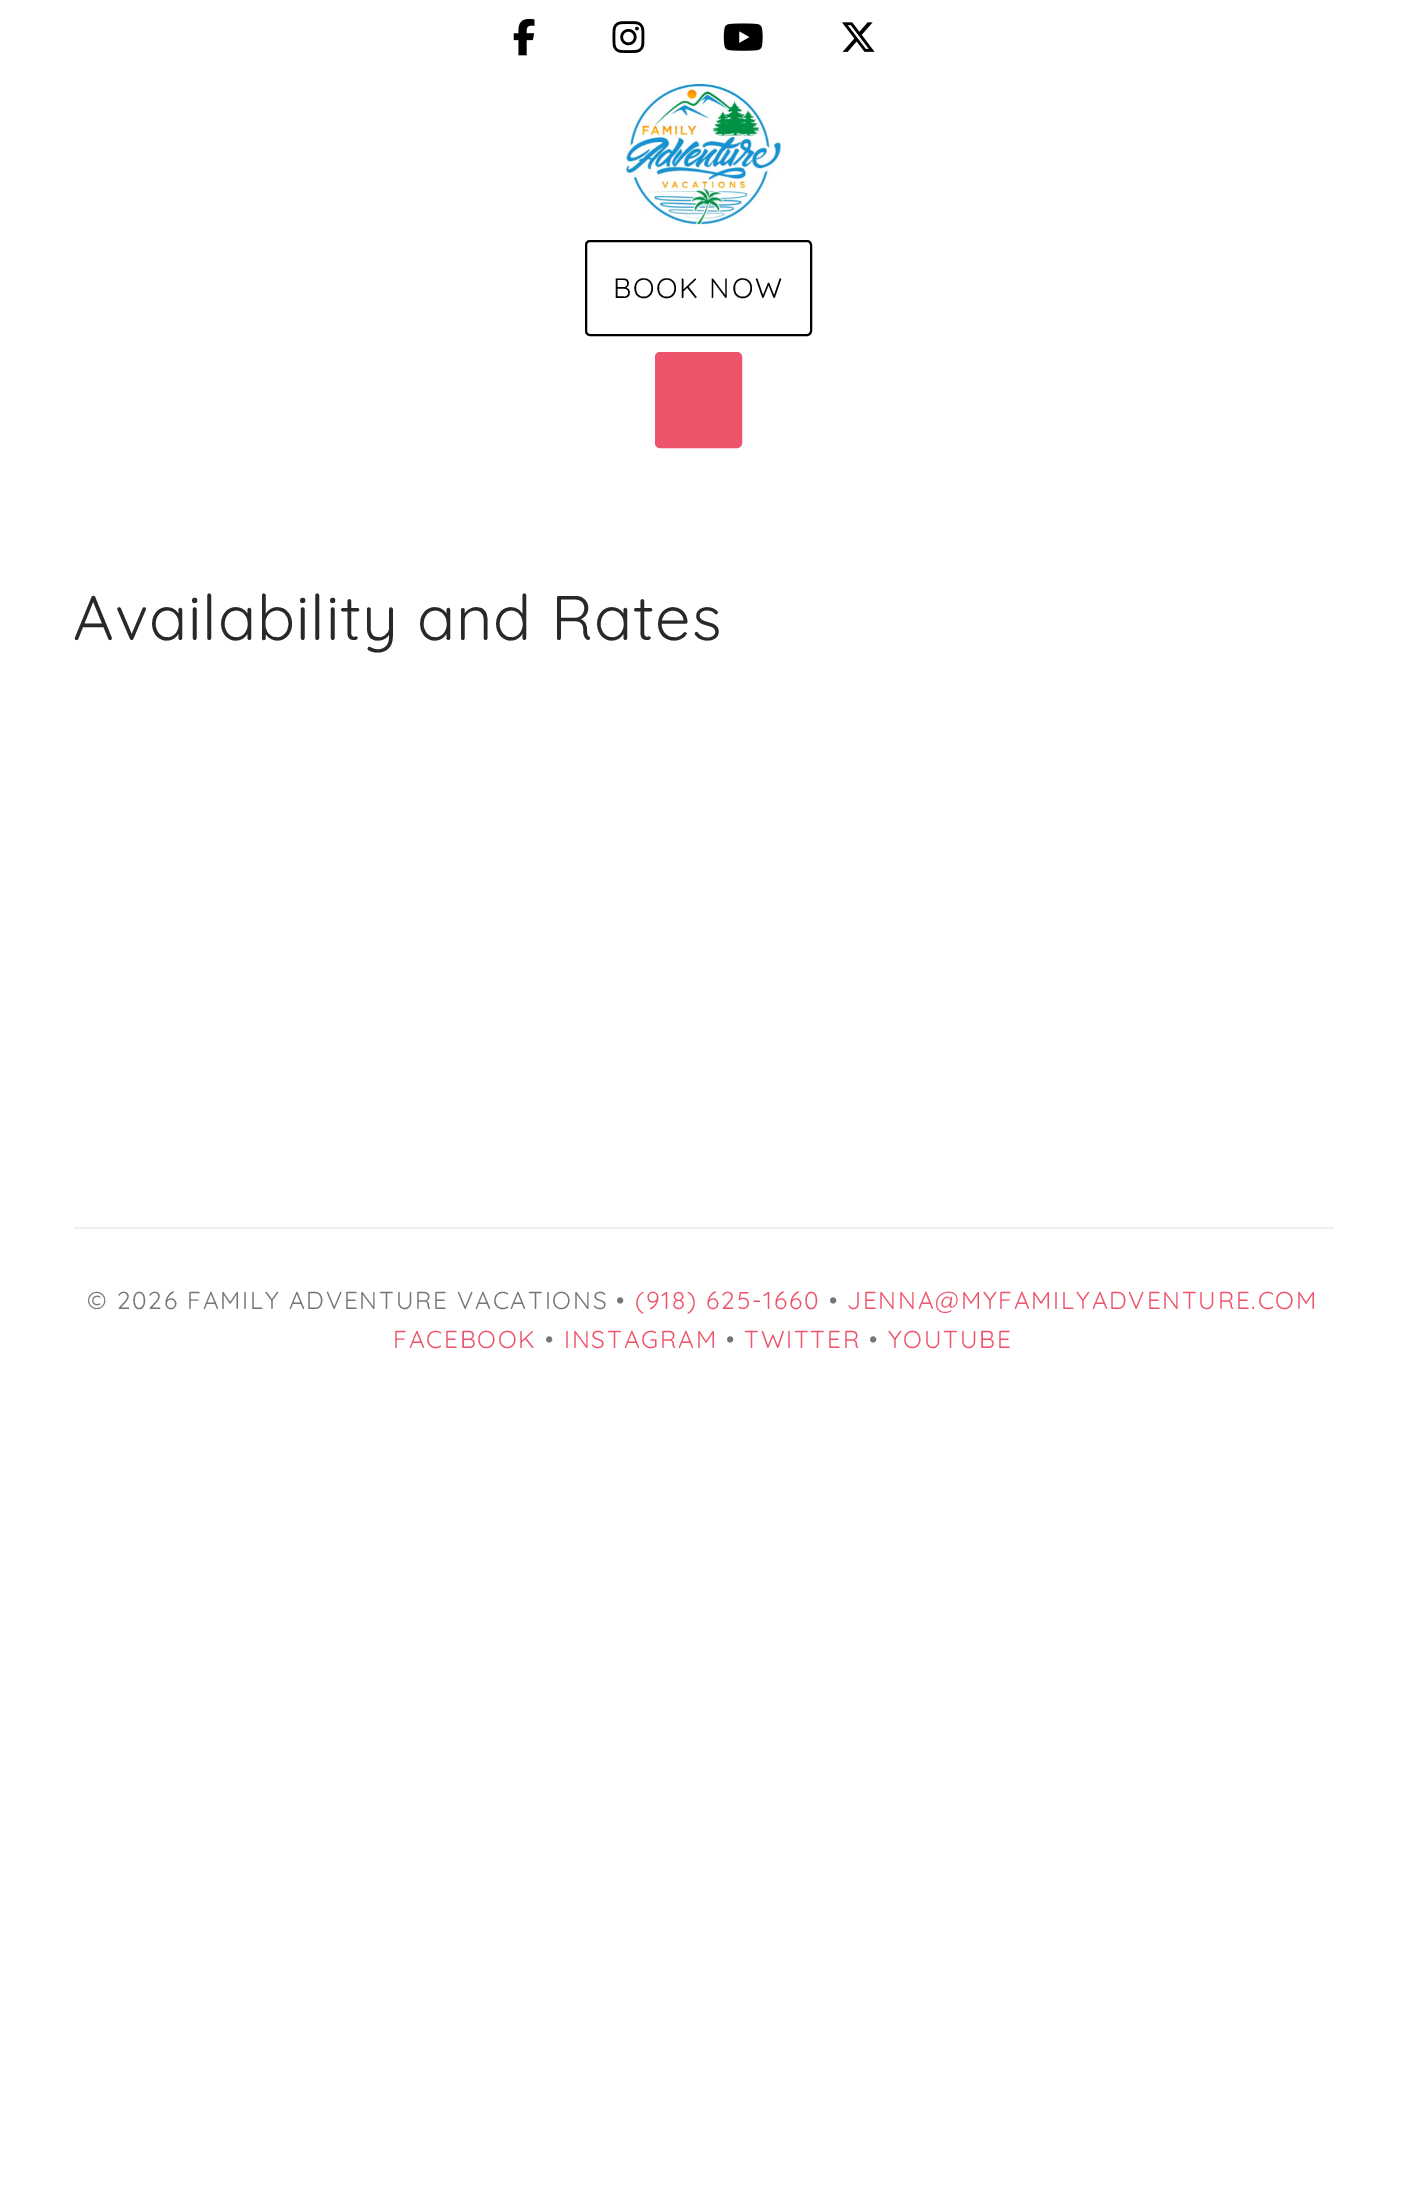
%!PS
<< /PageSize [1405 2192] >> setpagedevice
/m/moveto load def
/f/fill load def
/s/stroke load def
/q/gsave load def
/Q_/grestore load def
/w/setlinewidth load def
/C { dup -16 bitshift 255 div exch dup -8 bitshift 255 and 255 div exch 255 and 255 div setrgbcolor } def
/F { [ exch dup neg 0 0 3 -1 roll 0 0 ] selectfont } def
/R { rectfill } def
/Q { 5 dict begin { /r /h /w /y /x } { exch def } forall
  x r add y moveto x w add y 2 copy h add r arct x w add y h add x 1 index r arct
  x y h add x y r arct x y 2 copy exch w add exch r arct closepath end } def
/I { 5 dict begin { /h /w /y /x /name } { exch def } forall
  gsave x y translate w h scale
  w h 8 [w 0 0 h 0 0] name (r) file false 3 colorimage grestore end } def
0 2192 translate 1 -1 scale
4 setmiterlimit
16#FFFFFF C
0 0 1405 2192 R
(1.rgb) 513 18 22 38 I
(2.rgb) 612 21 33 32 I
(3.rgb) 723 23 40 28 I
(4.rgb) 842 22 33 30 I
(5.rgb) 626 84 155 141 I
16#000000 C
2 w
586 241 225 94 4 Q s
/Quicksand-Regular 28 F
613 298 m 1.75 0 (BOOK NOW) ashow
16#ED536A C
656 353 85 94 4 Q q f Q_
s
/Quicksand-Regular 63 F
16#292727 C
73 640 m .9 0 (Availability and Rates) ashow
16#EEEEEE C
74 1227 1260 2 R
/Quicksand-Regular 24.5 F
16#757575 C
87 1309 m 1.75 0 (© 2026 FAMILY ADVENTURE VACATIONS •) ashow
16#ED536A C
635 1309 m 1.75 0 (\(918\) 625-1660) ashow
16#757575 C
829 1309 m 1.75 0 (•) ashow
16#ED536A C
847 1309 m 1.75 0 (JENNA@MYFAMILYADVENTURE.COM) ashow
393 1348 m 1.75 0 (FACEBOOK) ashow
16#757575 C
545 1348 m 1.75 0 (•) ashow
16#ED536A C
564 1348 m 1.75 0 (INSTAGRAM) ashow
16#757575 C
726 1348 m 1.75 0 (•) ashow
16#ED536A C
744 1348 m 1.75 0 (TWITTER) ashow
16#757575 C
869 1348 m 1.75 0 (•) ashow
16#ED536A C
888 1348 m 1.75 0 (YOUTUBE) ashow
showpage
